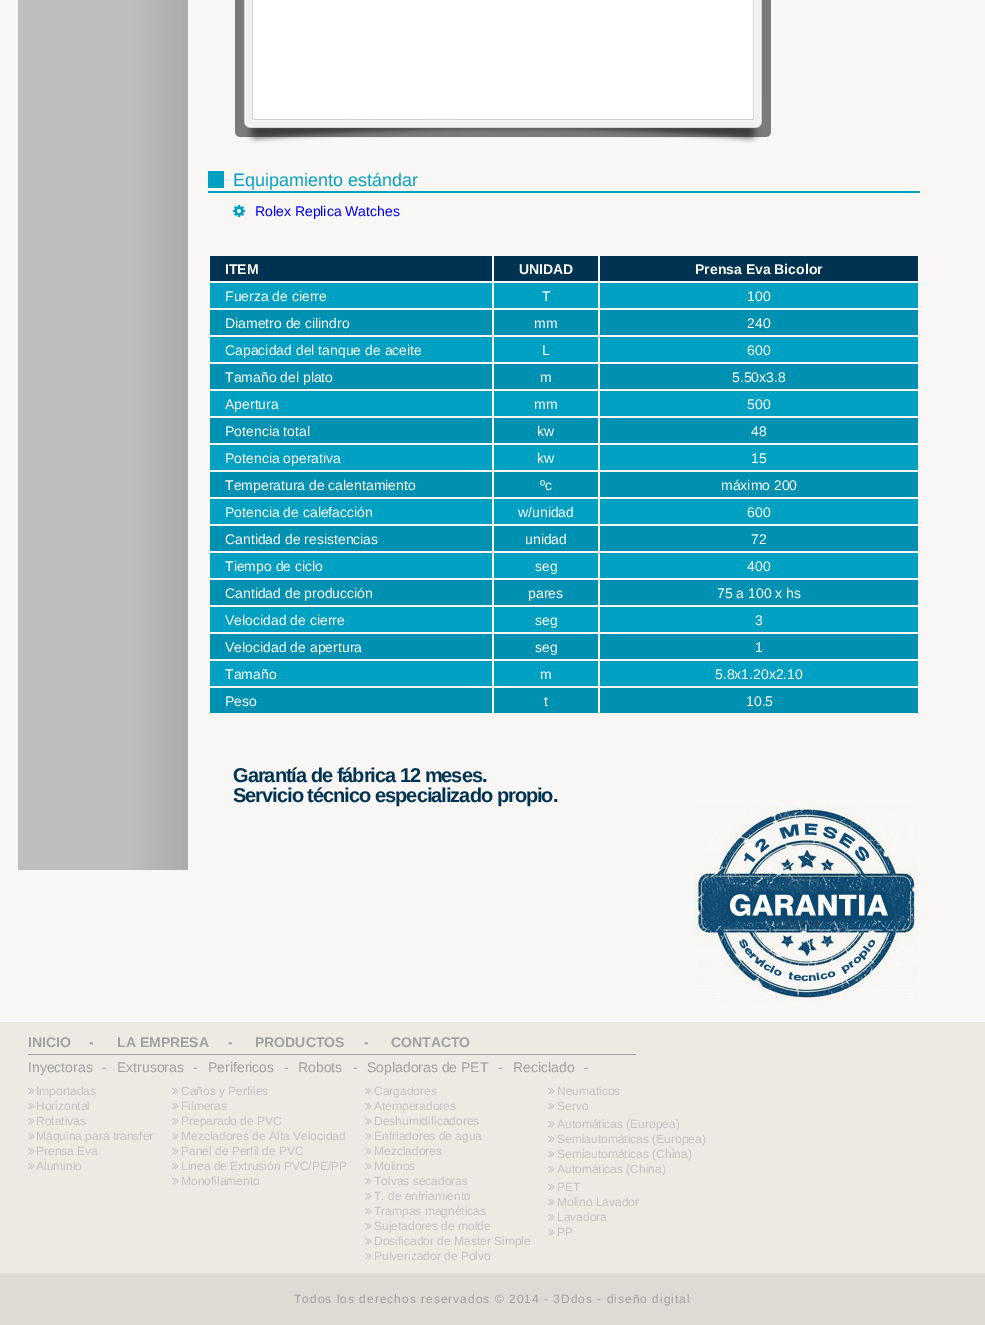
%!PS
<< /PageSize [985 1325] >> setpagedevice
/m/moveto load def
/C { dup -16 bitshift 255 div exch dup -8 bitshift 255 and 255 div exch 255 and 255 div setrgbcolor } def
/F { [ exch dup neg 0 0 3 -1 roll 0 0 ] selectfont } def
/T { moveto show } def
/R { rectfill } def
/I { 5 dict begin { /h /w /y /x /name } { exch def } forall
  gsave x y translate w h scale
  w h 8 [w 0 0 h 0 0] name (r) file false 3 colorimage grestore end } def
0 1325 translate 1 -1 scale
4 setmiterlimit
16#F9F7F5 C
0 0 985 1325 R
(1.rgb) 18 0 170 870 I
(2.rgb) 235 0 536 143 I
16#00A0C2 C
208 171 16 17 R
/LiberationSans-Regular 18 F
(Equipamiento estándar) 233 186 T
208 191 712 2 R
(3.rgb) 233 205 12 12 I
/LiberationSans-Regular 14 F
16#0000EE C
(Rolex Replica Watches) 255 216 T
16#003351 C
210 256 708 25 R
/LiberationSans-Bold 14 F
16#FFFFFF C
(ITEM) 225 274 T
(UNIDAD) 519 274 T
(Prensa Eva Bicolor) 695 274 T
16#00A0C2 C
210 283 708 25 R
/LiberationSans-Regular 14 F
16#FFFFFF C
(Fuerza de cierre) 225 301 T
(T) 542 301 T
(100) 747 301 T
16#0091B2 C
210 310 708 25 R
16#FFFFFF C
(Diametro de cilindro) 225 328 T
(mm) 534 328 T
(240) 747 328 T
16#00A0C2 C
210 337 708 25 R
16#FFFFFF C
(Capacidad del tanque de aceite) 225 355 T
(L) 542 355 T
(600) 747 355 T
16#0091B2 C
210 364 708 25 R
16#FFFFFF C
(Tamaño del plato) 225 382 T
(m) 540 382 T
(5.50x3.8) 732 382 T
16#00A0C2 C
210 391 708 25 R
16#FFFFFF C
(Apertura) 225 409 T
(mm) 534 409 T
(500) 747 409 T
16#0091B2 C
210 418 708 25 R
16#FFFFFF C
(Potencia total) 225 436 T
(kw) 537 436 T
(48) 751 436 T
16#00A0C2 C
210 445 708 25 R
16#FFFFFF C
(Potencia operativa) 225 463 T
(kw) 537 463 T
(15) 751 463 T
16#0091B2 C
210 472 708 25 R
16#FFFFFF C
(Temperatura de calentamiento) 225 490 T
(ºc) 540 490 T
(máximo 200) 721 490 T
16#00A0C2 C
210 499 708 25 R
16#FFFFFF C
(Potencia de calefacción) 225 517 T
(w/unidad) 518 517 T
(600) 747 517 T
16#0091B2 C
210 526 708 25 R
16#FFFFFF C
(Cantidad de resistencias) 225 544 T
(unidad) 525 544 T
(72) 751 544 T
16#00A0C2 C
210 553 708 25 R
16#FFFFFF C
(Tiempo de ciclo) 225 571 T
(seg) 535 571 T
(400) 747 571 T
16#0091B2 C
210 580 708 25 R
16#FFFFFF C
(Cantidad de producción) 225 598 T
(pares) 528 598 T
(75 a 100 x hs) 717 598 T
16#00A0C2 C
210 607 708 25 R
16#FFFFFF C
(Velocidad de cierre) 225 625 T
(seg) 535 625 T
(3) 755 625 T
16#0091B2 C
210 634 708 25 R
16#FFFFFF C
(Velocidad de apertura) 225 652 T
(seg) 535 652 T
(1) 755 652 T
16#00A0C2 C
210 661 708 25 R
16#FFFFFF C
(Tamaño) 225 679 T
(m) 540 679 T
(5.8x1.20x2.10) 715 679 T
16#0091B2 C
210 688 708 25 R
16#FFFFFF C
(Peso) 225 706 T
16#F9F7F5 C
492 254 2 461 R
16#FFFFFF C
(t) 544 706 T
16#F9F7F5 C
598 254 2 461 R
16#FFFFFF C
(10.5) 746 706 T
/LiberationSans-Bold 20 F
16#003351 C
233 782 m -1 0 (Garantía de fábrica 12 meses.) ashow
233 802 m -1 0 (Servicio técnico especializado propio.) ashow
(4.rgb) 695 805 224 197 I
16#EDE9E3 C
0 1022 985 251 R
/LiberationSans-Bold 14 F
16#A1A1A1 C
(INICIO) 28 1047 T
(-) 89 1047 T
(LA EMPRESA) 117 1047 T
(-) 228 1047 T
(PRODUCTOS) 255 1047 T
(-) 364 1047 T
(CONTACTO) 391 1047 T
28 1054 608 1 R
/LiberationSans-Regular 14 F
(Inyectoras) 28 1072 T
(-) 102 1072 T
(Extrusoras) 117 1072 T
(-) 193 1072 T
(Perifericos) 208 1072 T
(-) 284 1072 T
(Robots) 298 1072 T
(-) 353 1072 T
(Sopladoras de PET) 367 1072 T
(-) 498 1072 T
(Reciclado) 513 1072 T
(-) 584 1072 T
(5.rgb) 28 1088 7 7 I
/LiberationSans-Regular 12 F
16#C4C4C4 C
(Importadas) 36 1095 T
(5.rgb) 28 1103 7 7 I
(Horizontal) 36 1110 T
(5.rgb) 28 1118 7 7 I
(Rotativas) 36 1125 T
(5.rgb) 28 1133 7 7 I
(Máquina para transfer) 36 1140 T
(5.rgb) 28 1148 7 7 I
(Prensa Eva) 36 1155 T
(5.rgb) 28 1163 7 7 I
(Aluminio) 36 1170 T
(5.rgb) 172 1088 7 7 I
(Caños y Perfiles) 181 1095 T
(5.rgb) 172 1103 7 7 I
(Filmeras) 181 1110 T
(5.rgb) 172 1118 7 7 I
(Preparado de PVC) 181 1125 T
(5.rgb) 172 1133 7 7 I
(Mezcladores de Alta Velocidad) 181 1140 T
(5.rgb) 172 1148 7 7 I
(Panel de Perfil de PVC) 181 1155 T
(5.rgb) 172 1163 7 7 I
(Linea de Extrusión PVC/PE/PP) 181 1170 T
(5.rgb) 172 1178 7 7 I
(Monofilamento) 181 1185 T
(5.rgb) 365 1088 7 7 I
(Cargadores) 374 1095 T
(5.rgb) 365 1103 7 7 I
(Atemperadores) 374 1110 T
(5.rgb) 365 1118 7 7 I
(Deshumidificadores) 374 1125 T
(5.rgb) 365 1133 7 7 I
(Enfriadores de agua) 374 1140 T
(5.rgb) 365 1148 7 7 I
(Mezcladores) 374 1155 T
(5.rgb) 365 1163 7 7 I
(Molinos) 374 1170 T
(5.rgb) 365 1178 7 7 I
(Tolvas secadoras) 374 1185 T
(5.rgb) 365 1193 7 7 I
(T. de enfriamiento) 374 1200 T
(5.rgb) 365 1208 7 7 I
(Trampas magnéticas) 374 1215 T
(5.rgb) 365 1223 7 7 I
(Sujetadores de molde) 374 1230 T
(5.rgb) 365 1238 7 7 I
(Dosificador de Master Simple) 374 1245 T
(5.rgb) 365 1253 7 7 I
(Pulverizador de Polvo) 374 1260 T
(5.rgb) 548 1088 7 7 I
(Neumaticos) 557 1095 T
(5.rgb) 548 1103 7 7 I
(Servo) 557 1110 T
(5.rgb) 548 1121 7 7 I
(Automáticas \(Europea\)) 557 1128 T
(5.rgb) 548 1136 7 7 I
(Semiautomáticas \(Europea\)) 557 1143 T
(5.rgb) 548 1151 7 7 I
(Semiautomáticas \(China\)) 557 1158 T
(5.rgb) 548 1166 7 7 I
(Automáticas \(China\)) 557 1173 T
(5.rgb) 548 1184 7 7 I
(PET) 557 1191 T
(5.rgb) 548 1199 7 7 I
(Molino Lavador) 557 1206 T
(5.rgb) 548 1214 7 7 I
(Lavadora) 557 1221 T
(5.rgb) 548 1229 7 7 I
(PP) 557 1236 T
16#DEDAD4 C
0 1273 985 52 R
16#A1A1A1 C
294 1303 m 1 0 (Todos los derechos reservados © 2014 - 3Ddos - diseño digital) ashow
showpage
